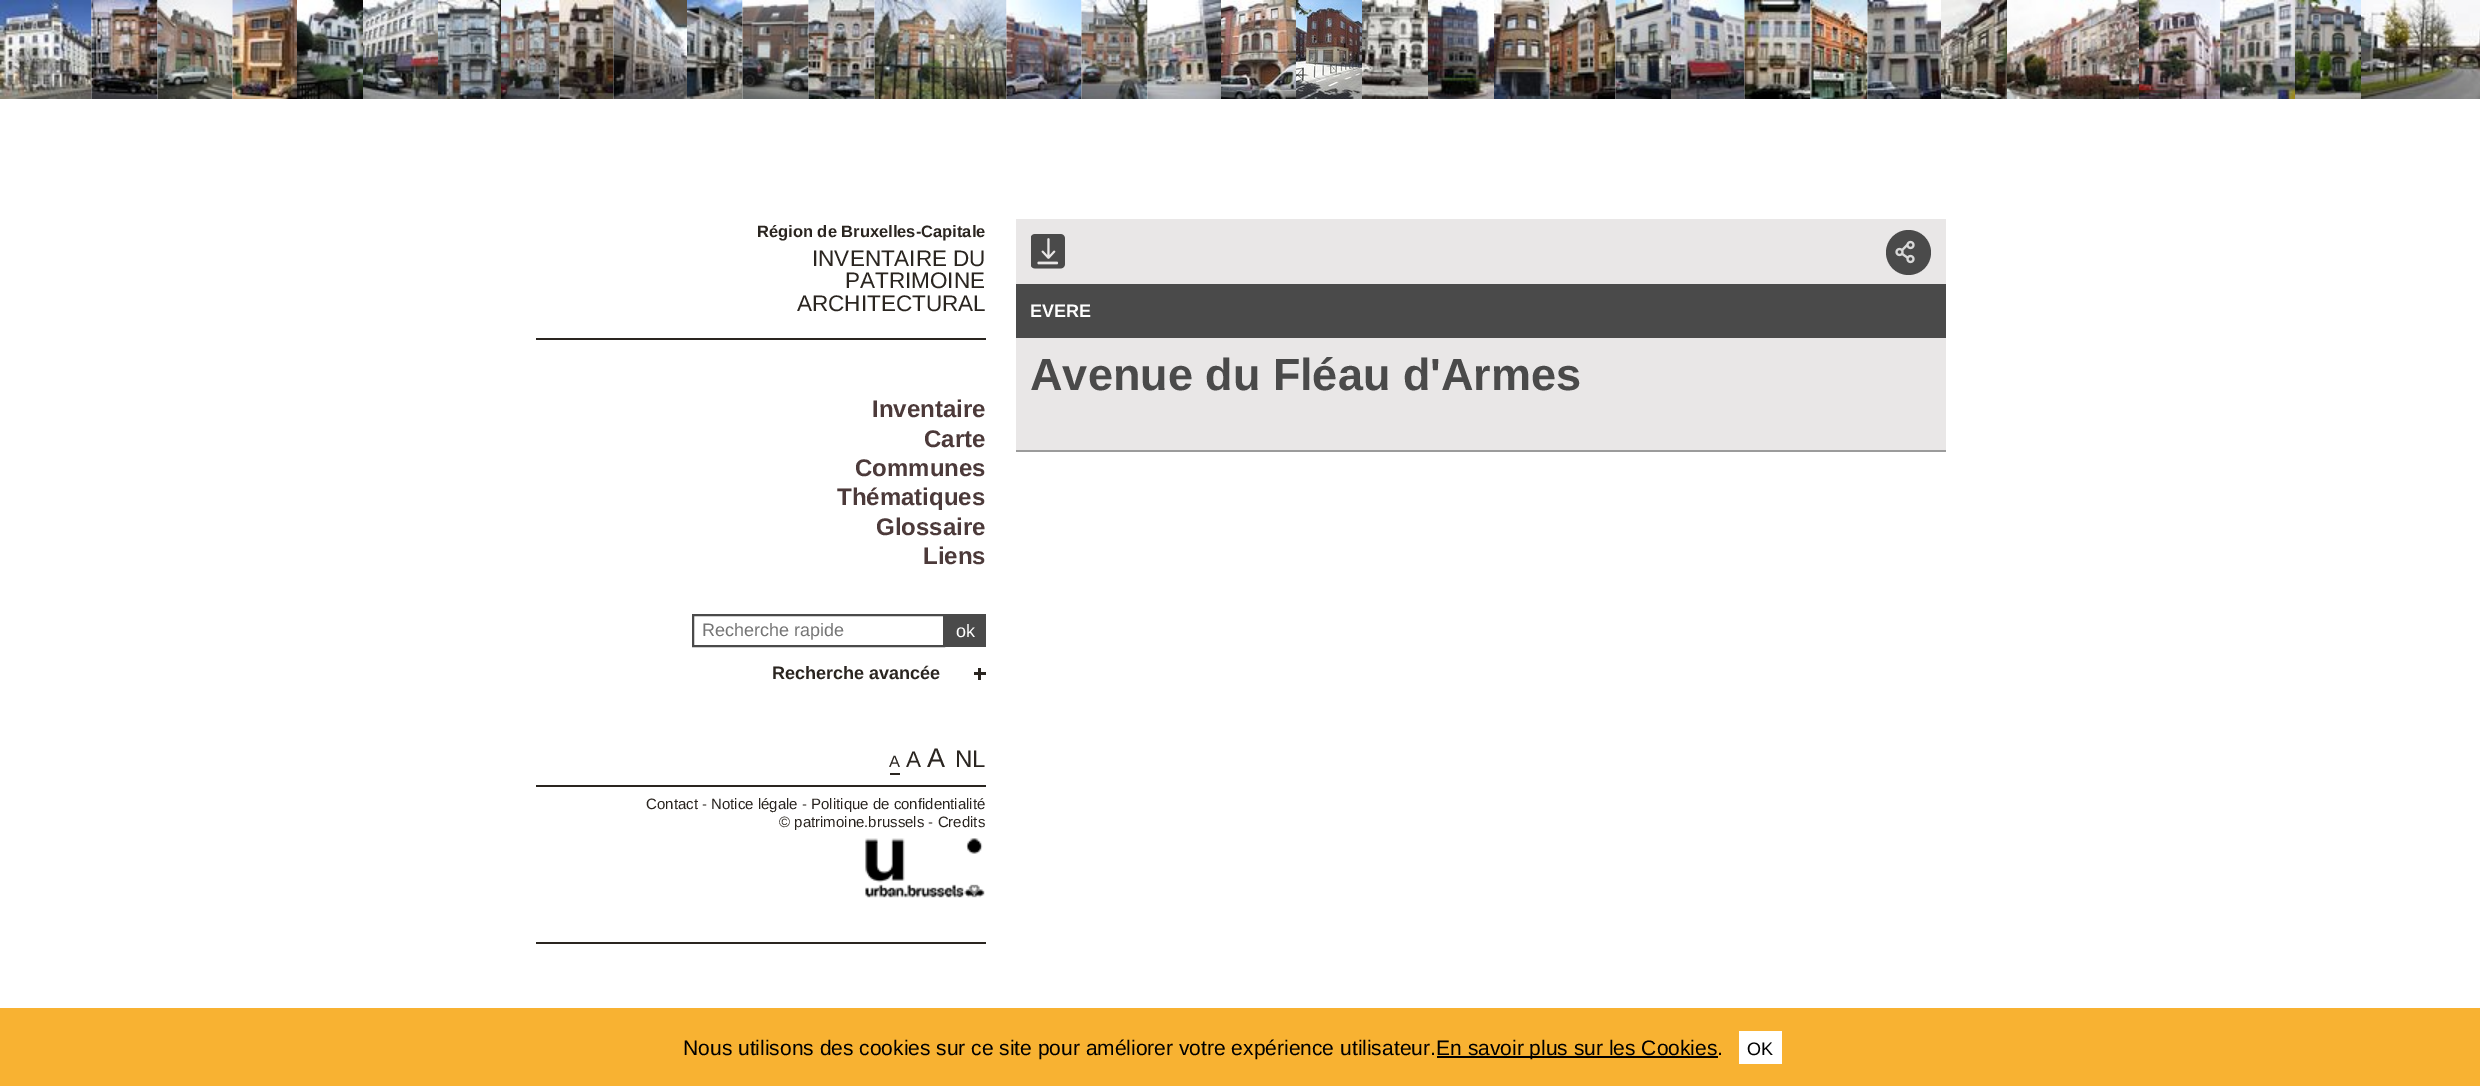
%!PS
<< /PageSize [2480 1086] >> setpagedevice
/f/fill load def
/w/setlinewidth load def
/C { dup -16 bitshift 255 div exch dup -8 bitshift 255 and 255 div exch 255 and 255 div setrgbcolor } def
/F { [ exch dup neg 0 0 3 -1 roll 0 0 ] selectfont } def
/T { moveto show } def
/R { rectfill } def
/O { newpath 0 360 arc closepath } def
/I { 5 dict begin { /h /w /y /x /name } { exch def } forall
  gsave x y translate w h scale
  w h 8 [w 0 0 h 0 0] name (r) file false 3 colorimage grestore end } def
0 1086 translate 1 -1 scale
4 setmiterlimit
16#FFFFFF C
0 0 2480 1086 R
(1.rgb) 0 0 92 99 I
(2.rgb) 91 0 67 99 I
(3.rgb) 157 0 76 99 I
(4.rgb) 232 0 65 99 I
(5.rgb) 297 0 66 99 I
(6.rgb) 363 0 75 99 I
(7.rgb) 438 0 63 99 I
(8.rgb) 501 0 59 99 I
(9.rgb) 559 0 55 99 I
(10.rgb) 613 0 74 99 I
(11.rgb) 687 0 56 99 I
(12.rgb) 742 0 67 99 I
(13.rgb) 808 0 67 99 I
(14.rgb) 874 0 133 99 I
(15.rgb) 1006 0 76 99 I
(16.rgb) 1081 0 67 99 I
(17.rgb) 1147 0 74 99 I
(18.rgb) 1221 0 75 99 I
(19.rgb) 1296 0 66 99 I
(20.rgb) 1362 0 66 99 I
(21.rgb) 1428 0 66 99 I
(22.rgb) 1494 0 56 99 I
(23.rgb) 1549 0 67 99 I
(24.rgb) 1615 0 56 99 I
(25.rgb) 1671 0 74 99 I
(26.rgb) 1744 0 67 99 I
(27.rgb) 1810 0 58 99 I
(28.rgb) 1867 0 74 99 I
(29.rgb) 1941 0 66 99 I
(30.rgb) 2007 0 132 99 I
(31.rgb) 2139 0 81 99 I
(32.rgb) 2220 0 75 99 I
(33.rgb) 2295 0 66 99 I
(34.rgb) 2361 0 119 99 I
16#2A2520 C
536 338 450 2 R
/LiberationSans-Bold 16.5 F
(Région de Bruxelles-Capitale) 757 237 T
/LiberationSans-Regular 22.5 F
(INVENTAIRE DU) 812 266 T
(PATRIMOINE) 845 288 T
(ARCHITECTURAL) 797 311 T
/LiberationSans-Bold 24 F
16#4C3A3A C
(Inventaire) 872 417 T
(Carte) 924 447 T
(Communes) 855 476 T
(Thématiques) 837 505 T
(Glossaire) 876 535 T
(Liens) 923 564 T
16#2A2520 C
536 942 450 2 R
16#4A4A4A C
2 w
693 615 251 31 rectstroke
/LiberationSans-Regular 18 F
16#757575 C
(Recherche rapide) 702 636 T
16#4A4A4A C
945 614 41 33 R
16#FFFFFF C
(ok) 956 637 T
/LiberationSans-Bold 18 F
16#2A2520 C
(Recherche avancée) 772 679 T
978 668 3 12 R
974 672 12 3 R
890 773 10 2 R
/LiberationSans-Regular 16.5 F
(A) 889 767 T
/LiberationSans-Regular 22.5 F
(A) 906 767 T
/LiberationSans-Regular 27 F
(A) 927 767 T
/LiberationSans-Regular 24 F
(NL) 955 767 T
536 785 450 2 R
/LiberationSans-Regular 15 F
(Contact - Notice légale - Politique de confidentialité) 646 809 T
(© patrimoine.brussels - Credits) 779 827 T
(35.rgb) 865 838 120 60 I
16#E9E7E7 C
1016 219 930 231 R
16#9B9B9B C
1016 450 930 2 R
(36.rgb) 1031 234 34 35 I
16#4A4A4A C
1908.5 252.5 22.5 O f
(37.rgb) 1895 240 20 24 I
1016 284 930 54 R
/LiberationSans-Bold 18 F
16#FFFFFF C
(EVERE) 1030 317 T
/LiberationSans-Bold 45 F
16#4A4A4A C
(Avenue du Fléau d'Armes) 1030 390 T
16#F8B232 C
0 1008 2480 78 R
/LiberationSans-Regular 21 F
16#000000 C
(Nous utilisons des cookies sur ce site pour améliorer votre expérience utilisateur.) 683 1055 T
1437 1056 281 2 R
(En savoir plus sur les Cookies.) 1436 1055 T
16#FFFFFF C
1739 1031 43 33 R
/LiberationSans-Regular 18 F
16#000000 C
(OK) 1747 1055 T
showpage
